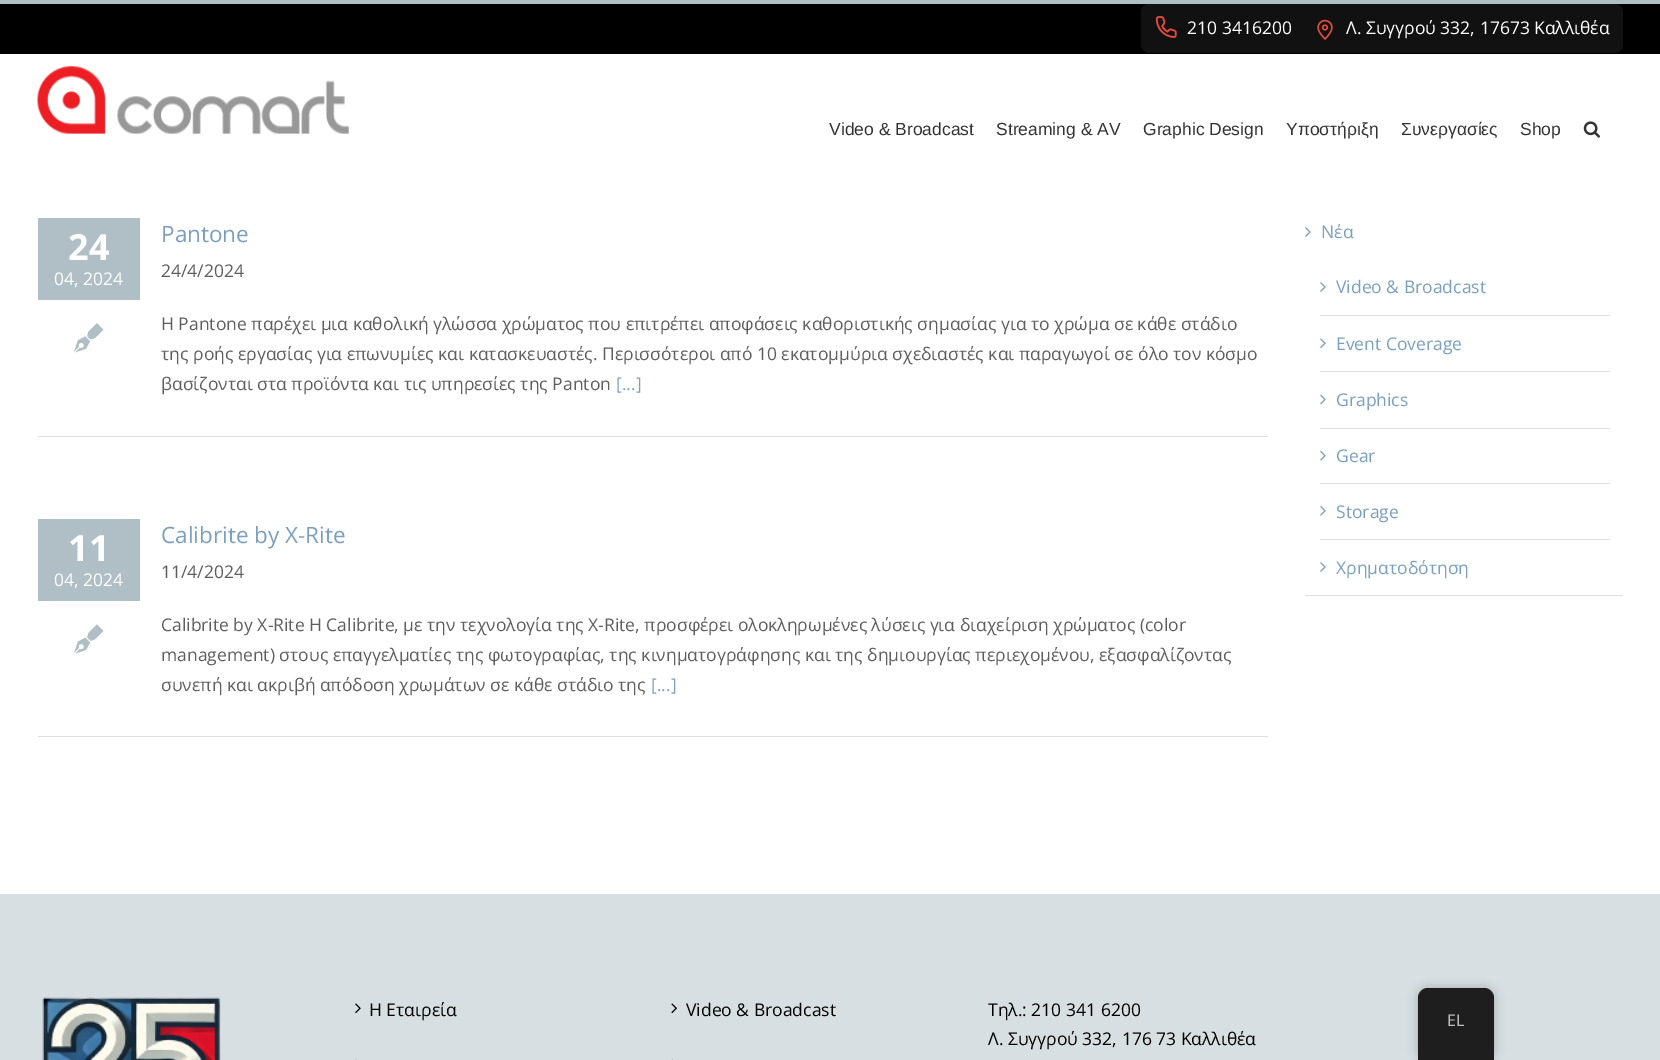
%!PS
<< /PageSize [1660 1060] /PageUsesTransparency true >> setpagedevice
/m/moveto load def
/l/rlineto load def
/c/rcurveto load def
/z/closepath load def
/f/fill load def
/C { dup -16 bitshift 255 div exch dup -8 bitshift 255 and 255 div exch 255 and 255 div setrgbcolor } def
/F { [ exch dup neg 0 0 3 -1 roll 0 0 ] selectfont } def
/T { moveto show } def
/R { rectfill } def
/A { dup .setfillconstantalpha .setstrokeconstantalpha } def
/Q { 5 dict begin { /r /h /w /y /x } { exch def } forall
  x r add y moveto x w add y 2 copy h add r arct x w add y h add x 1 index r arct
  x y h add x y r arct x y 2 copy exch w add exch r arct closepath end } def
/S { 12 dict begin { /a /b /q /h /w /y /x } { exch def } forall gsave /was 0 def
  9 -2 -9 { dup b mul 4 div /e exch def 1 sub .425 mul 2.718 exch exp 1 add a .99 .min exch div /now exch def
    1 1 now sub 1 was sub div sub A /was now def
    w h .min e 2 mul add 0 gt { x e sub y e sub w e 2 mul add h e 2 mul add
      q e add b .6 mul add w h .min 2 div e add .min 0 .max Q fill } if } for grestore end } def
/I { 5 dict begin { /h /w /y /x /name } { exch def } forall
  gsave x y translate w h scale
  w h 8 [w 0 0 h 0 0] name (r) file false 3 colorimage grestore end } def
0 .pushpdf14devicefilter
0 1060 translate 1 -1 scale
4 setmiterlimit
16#FFFFFF C
0 0 1660 1060 R
16#000000 C
0 4 1660 50 R
16#B0BEC5 C
0 0 1660 4 R
16#111111 C
1141 4 482 49 8 Q f
(1.rgb) 1155 16 22 22 I
/OpenSans-Regular 17.5 F
16#FFFFFF C
(210 3416200) 1187 34 T
(2.rgb) 1317 19 16 21 I
(Λ. Συγγρού 332, 17673 Καλλιθέα) 1346 34 T
(3.rgb) 37 66 312 68 I
/LiberationSans-Regular 17.5 F
16#333333 C
(Video & Broadcast) 829 135 T
(Streaming & AV) 996 135 T
(Graphic Design) 1143 135 T
(Υποστήριξη) 1286 135 T
(Συνεργασίες) 1401 135 T
(Shop) 1520 135 T
(4.rgb) 1583 121 17 17 I
16#B0BEC5 C
38 218 102 82 R
/OpenSans-Bold 36 F
16#FFFFFF C
(24) 68 260 T
/OpenSans-Regular 17.5 F
(04, 2024) 54 285 T
(5.rgb) 74 323 30 30 I
/OpenSans-Regular 22.5 F
16#7A9FBF C
(Pantone) 161 242 T
/OpenSans-Regular 17.5 F
16#5E5E5E C
(24/4/2024) 161 277 T
(Η Pantone παρέχει μια καθολική γλώσσα χρώματος που επιτρέπει αποφάσεις καθοριστικής σημασίας για το χρώμα σε κάθε στάδιο) 161 330 T
(της ροής εργασίας για επωνυμίες και κατασκευαστές. Περισσότεροι από 10 εκατομμύρια σχεδιαστές και παραγωγοί σε όλο τον κόσμο) 161 360 T
(βασίζονται στα προϊόντα και τις υπηρεσίες της Panton) 161 390 T
16#7A9FBF C
([...]) 616 390 T
16#E0DEDE C
38 436 1230 1 R
16#B0BEC5 C
38 519 102 82 R
/OpenSans-Bold 36 F
16#FFFFFF C
(11) 68 561 T
/OpenSans-Regular 17.5 F
(04, 2024) 54 586 T
(6.rgb) 74 624 30 30 I
/OpenSans-Regular 22.5 F
16#7A9FBF C
(Calibrite by X-Rite) 161 543 T
/OpenSans-Regular 17.5 F
16#5E5E5E C
(11/4/2024) 161 578 T
(Calibrite by X-Rite Η Calibrite, με την τεχνολογία της X-Rite, προσφέρει ολοκληρωμένες λύσεις για διαχείριση χρώματος \(color) 161 631 T
(management\) στους επαγγελματίες της φωτογραφίας, της κινηματογράφησης και της δημιουργίας περιεχομένου, εξασφαλίζοντας) 161 661 T
(συνεπή και ακριβή απόδοση χρωμάτων σε κάθε στάδιο της) 161 691 T
16#7A9FBF C
([...]) 651 691 T
16#E0DEDE C
38 736 1230 1 R
1305 595 318 1 R
(7.rgb) 1305 227 6 10 I
16#7A9FBF C
(Νέα) 1321 238 T
16#E0DEDE C
1320 315 290 1 R
(7.rgb) 1320 282 6 10 I
16#7A9FBF C
(Video & Broadcast) 1336 293 T
16#E0DEDE C
1320 371 290 1 R
(8.rgb) 1320 338 6 11 I
16#7A9FBF C
(Event Coverage) 1336 350 T
16#E0DEDE C
1320 428 290 1 R
(9.rgb) 1320 394 6 11 I
16#7A9FBF C
(Graphics) 1336 406 T
16#E0DEDE C
1320 483 290 1 R
(10.rgb) 1320 451 6 10 I
16#7A9FBF C
(Gear) 1336 462 T
16#E0DEDE C
1320 539 290 1 R
(10.rgb) 1320 506 6 10 I
16#7A9FBF C
(Storage) 1336 518 T
(7.rgb) 1320 562 6 10 I
(Χρηματοδότηση) 1336 574 T
16#D8DFE2 C
0 894 1660 166 R
(11.rgb) 42 997 179 63 I
(12.rgb) 355 1003 6 11 I
16#000000 C
(Η Εταιρεία) 369 1016 T
(13.rgb) 355 1059 2 1 I
(14.rgb) 671 1003 6 11 I
(Video & Broadcast) 686 1016 T
(15.rgb) 671 1059 2 1 I
(Τηλ.: 210 341 6200) 988 1016 T
(Λ. Συγγρού 332, 176 73 Καλλιθέα) 988 1045 T
1418 988 76 72 10 5 .25 S
16#1E1E1E C
1428 988 m 56 0 l 5.5 0 10 4.5 10 10 c 0 62 l -76 0 l 0 -62 l 0 -5.5 4.5 -10 10 -10 c z f
/OpenSans-Regular 16 F
16#BDBDBD C
(EL) 1447 1026 T
.poppdf14devicefilter showpage
